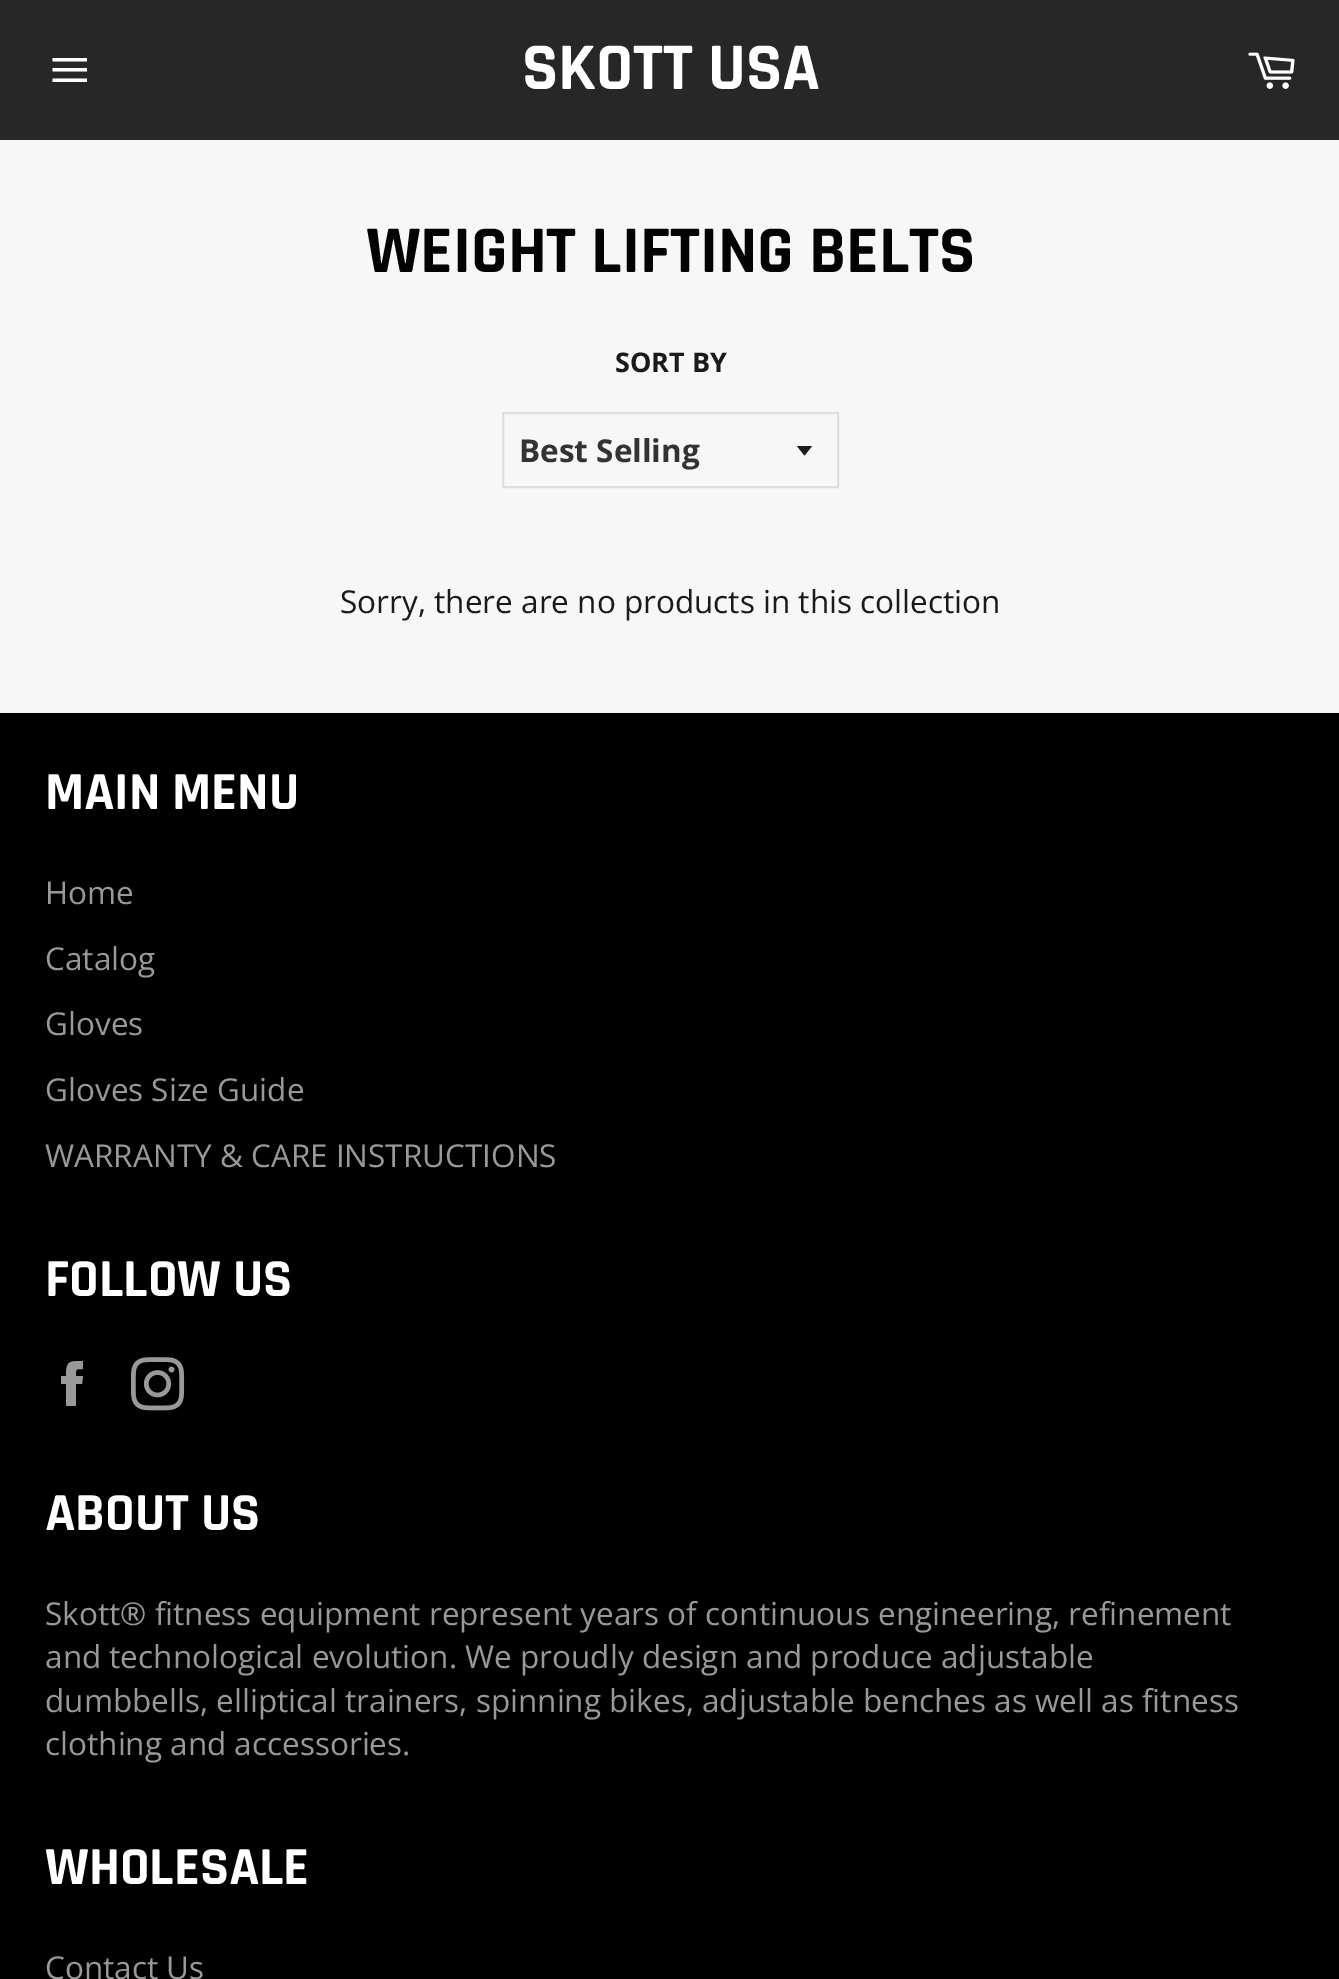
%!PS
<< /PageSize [1339 1979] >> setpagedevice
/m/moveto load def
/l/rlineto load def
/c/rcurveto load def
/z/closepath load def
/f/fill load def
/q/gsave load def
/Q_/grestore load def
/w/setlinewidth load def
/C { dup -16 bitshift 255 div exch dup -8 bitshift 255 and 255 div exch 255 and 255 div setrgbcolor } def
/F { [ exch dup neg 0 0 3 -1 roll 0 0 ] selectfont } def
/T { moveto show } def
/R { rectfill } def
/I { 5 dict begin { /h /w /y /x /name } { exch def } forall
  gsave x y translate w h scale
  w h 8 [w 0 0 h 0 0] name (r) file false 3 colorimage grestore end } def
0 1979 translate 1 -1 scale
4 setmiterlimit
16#F7F7F7 C
0 0 1339 1979 R
16#262726 C
0 0 1339 140 R
16#FFFFFF C
52.5 68 m 34.5 0 l 0 3.5 l -34.5 0 l z 52.5 58 m 34.5 0 l 0 3.5 l -34.5 0 l z 52.5 78.5 m 34.5 0 l 0 3.5 l -34.5 0 l z f
/Rajdhani-Bold 67.5 F
(SKOTT USA) 522 89 T
(1.rgb) 1248 52 47 37 I
16#030303 C
(WEIGHT LIFTING BELTS) 366 272 T
/OpenSans-Bold 27 F
16#1A1A1A C
(SORT BY) 615 372 T
q
797 446 18 11 rectclip
796.5 445.5 m 8 10 l 8 -10 l z f
Q_
16#DEDEDE C
2 w
503 413 335 74 rectstroke
/OpenSans-Bold 31.5 F
16#333333 C
(Best Selling) 519 462 T
/OpenSans-Regular 31.5 F
16#1A1A1A C
(Sorry, there are no products in this collection) 340 613 T
16#000000 C
0 713 1339 1266 R
/Rajdhani-Bold 54 F
16#FFFFFF C
(MAIN MENU) 45 809 T
/OpenSans-Regular 31.5 F
16#999999 C
(Home) 45 904 T
(Catalog) 45 970 T
(Gloves) 45 1035 T
(Gloves Size Guide) 45 1101 T
(WARRANTY & CARE INSTRUCTIONS) 45 1167 T
/Rajdhani-Bold 54 F
16#FFFFFF C
(FOLLOW US) 45 1296 T
16#999999 C
76 1376 m 0 -7 -1 -7 7 -7 c 0 -8 l -14 0 -17 0 -17 15 c -5 0 l 0 8 l 5 0 l 0 22 l 10 0 l 0 -22 l 6 0 l 1 -8 l z f
(2.rgb) 131 1357 54 54 I
16#FFFFFF C
(ABOUT US) 45 1530 T
/OpenSans-Regular 31.5 F
16#999999 C
(Skott® fitness equipment represent years of continuous engineering, refinement) 45 1625 T
(and technological evolution. We proudly design and produce adjustable) 45 1668 T
(dumbbells, elliptical trainers, spinning bikes, adjustable benches as well as fitness) 45 1712 T
(clothing and accessories.) 45 1755 T
/Rajdhani-Bold 54 F
16#FFFFFF C
(WHOLESALE) 45 1884 T
/OpenSans-Regular 31.5 F
16#999999 C
(Contact Us) 45 1979 T
showpage
